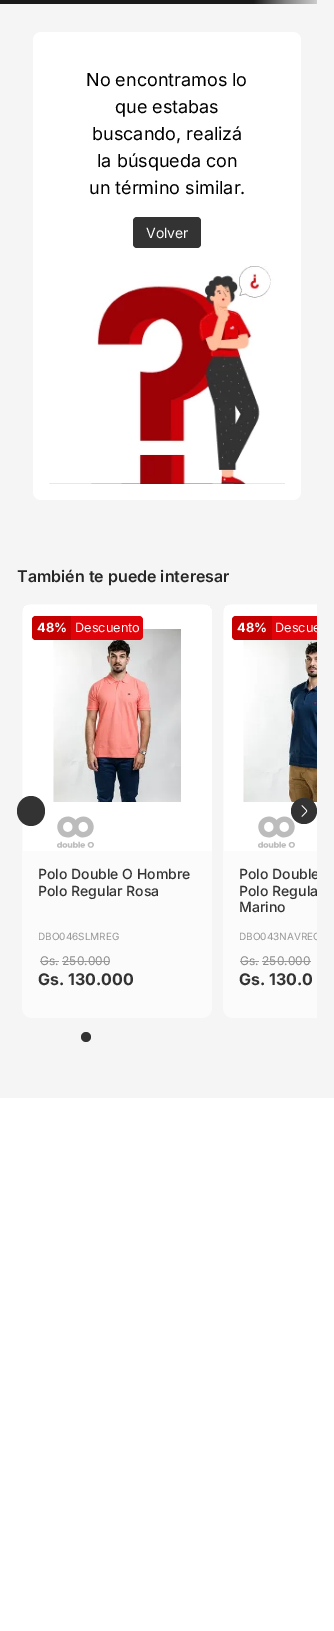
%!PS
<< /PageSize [334 1631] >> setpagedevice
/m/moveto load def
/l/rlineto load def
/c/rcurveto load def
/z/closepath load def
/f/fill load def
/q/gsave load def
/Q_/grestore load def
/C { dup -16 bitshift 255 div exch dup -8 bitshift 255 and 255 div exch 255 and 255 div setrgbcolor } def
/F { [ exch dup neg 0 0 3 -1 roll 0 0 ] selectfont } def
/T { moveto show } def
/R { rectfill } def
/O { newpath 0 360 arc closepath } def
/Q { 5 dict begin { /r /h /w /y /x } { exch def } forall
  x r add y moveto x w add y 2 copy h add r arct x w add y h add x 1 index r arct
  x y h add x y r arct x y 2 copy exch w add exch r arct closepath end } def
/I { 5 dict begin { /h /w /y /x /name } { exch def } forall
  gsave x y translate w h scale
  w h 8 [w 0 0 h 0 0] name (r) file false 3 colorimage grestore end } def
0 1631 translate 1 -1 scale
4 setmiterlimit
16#FFFFFF C
0 0 334 1631 R
16#F5F5F5 C
0 0 334 1098 R
q 0 0 m 317 0 l 0 4 l -317 0 l z clip newpath
<< /ShadingType 2 /ColorSpace /DeviceRGB /Coords [0 2 317 2] /Extend [true true] /Function << /FunctionType 3 /Domain [0 1] /Functions [<< /FunctionType 2 /Domain [0 1] /C0 [.102 .102 .102] /C1 [.102 .102 .102] /N 1 >> << /FunctionType 2 /Domain [0 1] /C0 [.102 .102 .102] /C1 [.502 .502 .502] /N 1 >> << /FunctionType 2 /Domain [0 1] /C0 [.502 .502 .502] /C1 [.8 .8 .8] /N 1 >>] /Bounds [.8 .9] /Encode [0 1 0 1 0 1] >> >> shfill Q_
16#FFFFFF C
33 32 268 468 8 Q f
/Inter-Regular 18 F
16#000000 C
(No encontramos lo) 86 86 T
(que estabas) 115 113 T
(buscando, realizá) 92 140 T
(la búsqueda con) 97 167 T
(un término similar.) 89 194 T
16#333333 C
133 217 68 31 4 Q f
/Inter-Regular 14 F
16#FFFFFF C
(Volver) 146 238 T
(1.rgb) 49 266 236 218 I
/Inter-SemiBold 16 F
16#262626 C
(También te puede interesar) 17 582 T
16#FBFBFB C
22 604 190 414 10 Q f
q
22 604 190 414 10 Q clip newpath
16#FFFFFF C
23 605 189 246 R
Q_
16#333333 C
31 796 m 7.5 0 14 6.5 14 15 c 0 8.5 -6.5 15 -14 15 c -7.5 0 -14 -6.5 -14 -15 c 0 -8.5 6.5 -15 14 -15 c z f
(2.rgb) 53 629 128 173 I
(3.rgb) 57 816 37 32 I
16#E00309 C
32 616 111 24 4 Q f
16#C50000 C
36 616 m 35 0 l 0 24 l -35 0 l -2 0 -4 -2 -4 -4 c 0 -16 l 0 -2 2 -4 4 -4 c z f
/Inter-Bold 12.75 F
16#FFFFFF C
(48%) 37 632 T
/Inter-Regular 12.75 F
(Descuento) 75 632 T
/Inter-Medium 14 F
16#333333 C
(Polo Double O Hombre) 38 879 T
(Polo Regular Rosa) 38 896 T
/Inter-Regular 10 F
16#979797 C
(DBO046SLMREG) 38 940 T
/Inter-Regular 12 F
16#8C8C8C C
(Gs. 250.000) 40 965 T
16#979899 C
40 961 19 1 R
62 961 48 1 R
/Inter-Bold 16 F
16#333333 C
(Gs. 130.000) 38 985 T
16#FBFBFB C
233 604 m 84 0 l 0 414 l -84 0 l -5.5 0 -10 -4.5 -10 -10 c 0 -394 l 0 -5.5 4.5 -10 10 -10 c z f
q
223 604 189 414 10 Q clip newpath
16#FFFFFF C
224 605 93 246 R
Q_
(4.rgb) 243 640 74 162 I
(3.rgb) 258 816 37 32 I
16#E00309 C
236 616 m 81 0 l 0 24 l -81 0 l -2 0 -4 -2 -4 -4 c 0 -16 l 0 -2 2 -4 4 -4 c z f
16#C50000 C
236 616 m 36 0 l 0 24 l -36 0 l -2 0 -4 -2 -4 -4 c 0 -16 l 0 -2 2 -4 4 -4 c z f
/Inter-Bold 12.75 F
16#FFFFFF C
(48%) 237 632 T
q
17 604 300 414 rectclip
/Inter-Regular 12.75 F
(Descue) 275 632 T
Q_
q
239 866 78 49 rectclip
/Inter-Medium 14 F
16#333333 C
(Polo Double) 239 879 T
Q_
/Inter-Medium 14 F
16#333333 C
(Polo Regula) 239 896 T
(Marino) 239 912 T
q
17 604 300 414 rectclip
/Inter-Regular 10 F
16#979797 C
(DBO043NAVREG) 239 940 T
Q_
/Inter-Regular 12 F
16#8C8C8C C
(Gs. 250.000) 240 965 T
16#979899 C
240 961 19 1 R
262 961 49 1 R
/Inter-Bold 16 F
16#333333 C
(Gs. 130.0) 239 985 T
304 811 13 O f
(5.rgb) 301 805 7 12 I
86 1037 5 O f
showpage
